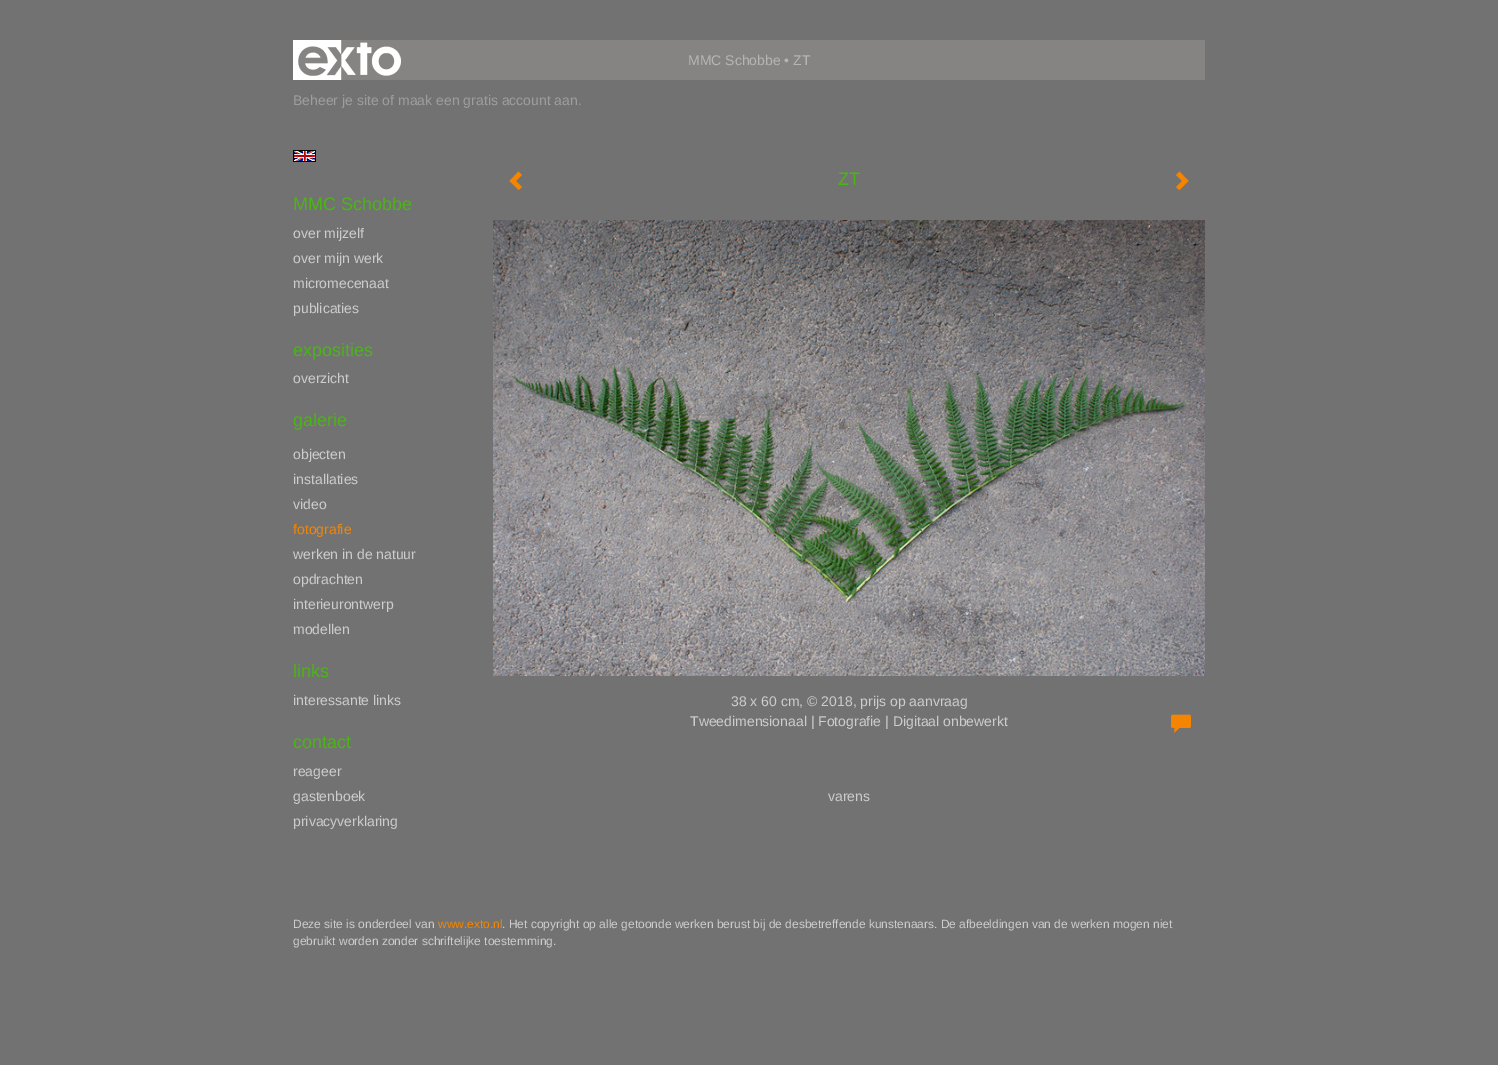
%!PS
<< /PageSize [1498 1065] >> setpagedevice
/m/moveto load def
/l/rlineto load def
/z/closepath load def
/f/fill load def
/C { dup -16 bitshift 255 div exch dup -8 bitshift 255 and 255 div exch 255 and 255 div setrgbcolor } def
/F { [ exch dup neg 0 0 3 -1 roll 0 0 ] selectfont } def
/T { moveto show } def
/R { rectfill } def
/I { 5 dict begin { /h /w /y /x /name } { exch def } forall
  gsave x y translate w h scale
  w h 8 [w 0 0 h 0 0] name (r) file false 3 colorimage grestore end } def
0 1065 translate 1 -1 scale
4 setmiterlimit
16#727272 C
0 0 1498 1065 R
16#868383 C
298 40 907 40 R
(1.rgb) 293 40 108 40 I
/LiberationSans-Regular 14 F
16#B5B5B5 C
(MMC Schobbe • ZT) 688 65 T
16#9E9E9E C
(Beheer je site of maak een gratis account aan.) 293 105 T
(2.rgb) 293 150 23 12 I
/LiberationSans-Regular 18 F
16#4AB614 C
(MMC Schobbe) 293 210 T
/LiberationSans-Regular 14 F
16#CDCDCD C
(over mijzelf) 293 238 T
(over mijn werk) 293 263 T
(micromecenaat) 293 288 T
(publicaties) 293 313 T
/LiberationSans-Regular 18 F
16#4AB614 C
(exposities) 293 356 T
/LiberationSans-Regular 14 F
16#CDCDCD C
(overzicht) 293 383 T
/LiberationSans-Regular 18 F
16#4AB614 C
(galerie) 293 426 T
/LiberationSans-Regular 14 F
16#CDCDCD C
(objecten) 293 459 T
(installaties) 293 484 T
(video) 293 509 T
16#F58500 C
(fotografie) 293 534 T
16#CDCDCD C
(werken in de natuur) 293 559 T
(opdrachten) 293 584 T
(interieurontwerp) 293 609 T
(modellen) 293 634 T
/LiberationSans-Regular 18 F
16#4AB614 C
(links) 293 677 T
/LiberationSans-Regular 14 F
16#CDCDCD C
(interessante links) 293 705 T
/LiberationSans-Regular 18 F
16#4AB614 C
(contact) 293 748 T
/LiberationSans-Regular 14 F
16#CDCDCD C
(reageer) 293 776 T
(gastenboek) 293 801 T
(privacyverklaring) 293 826 T
16#F58500 C
522 175 m -6 6 l 6 6 l -3.5 3 l -9 -9 l 9 -9.5 l z f
/LiberationSans-Regular 18 F
16#4AB614 C
(ZT) 838 185 T
16#F58500 C
1188.5 181 m -9 9 l -3.5 -3 l 6 -6 l -6 -6 l 3.5 -3.5 l z f
(3.rgb) 493 220 712 456 I
/LiberationSans-Regular 14 F
16#CDCDCD C
(38 x 60 cm, © 2018, prijs op aanvraag) 731 706 T
(Tweedimensionaal | Fotografie | Digitaal onbewerkt) 690 726 T
(4.rgb) 1171 714 20 19 I
(varens) 828 801 T
/LiberationSans-Regular 12 F
(Deze site is onderdeel van) 293 928 T
16#F58500 C
(www.exto.nl) 438 928 T
16#CDCDCD C
(. Het copyright op alle getoonde werken berust bij de desbetreffende kunstenaars. De afbeeldingen van de werken mogen niet) 502 928 T
(gebruikt worden zonder schriftelijke toestemming.) 293 945 T
showpage
